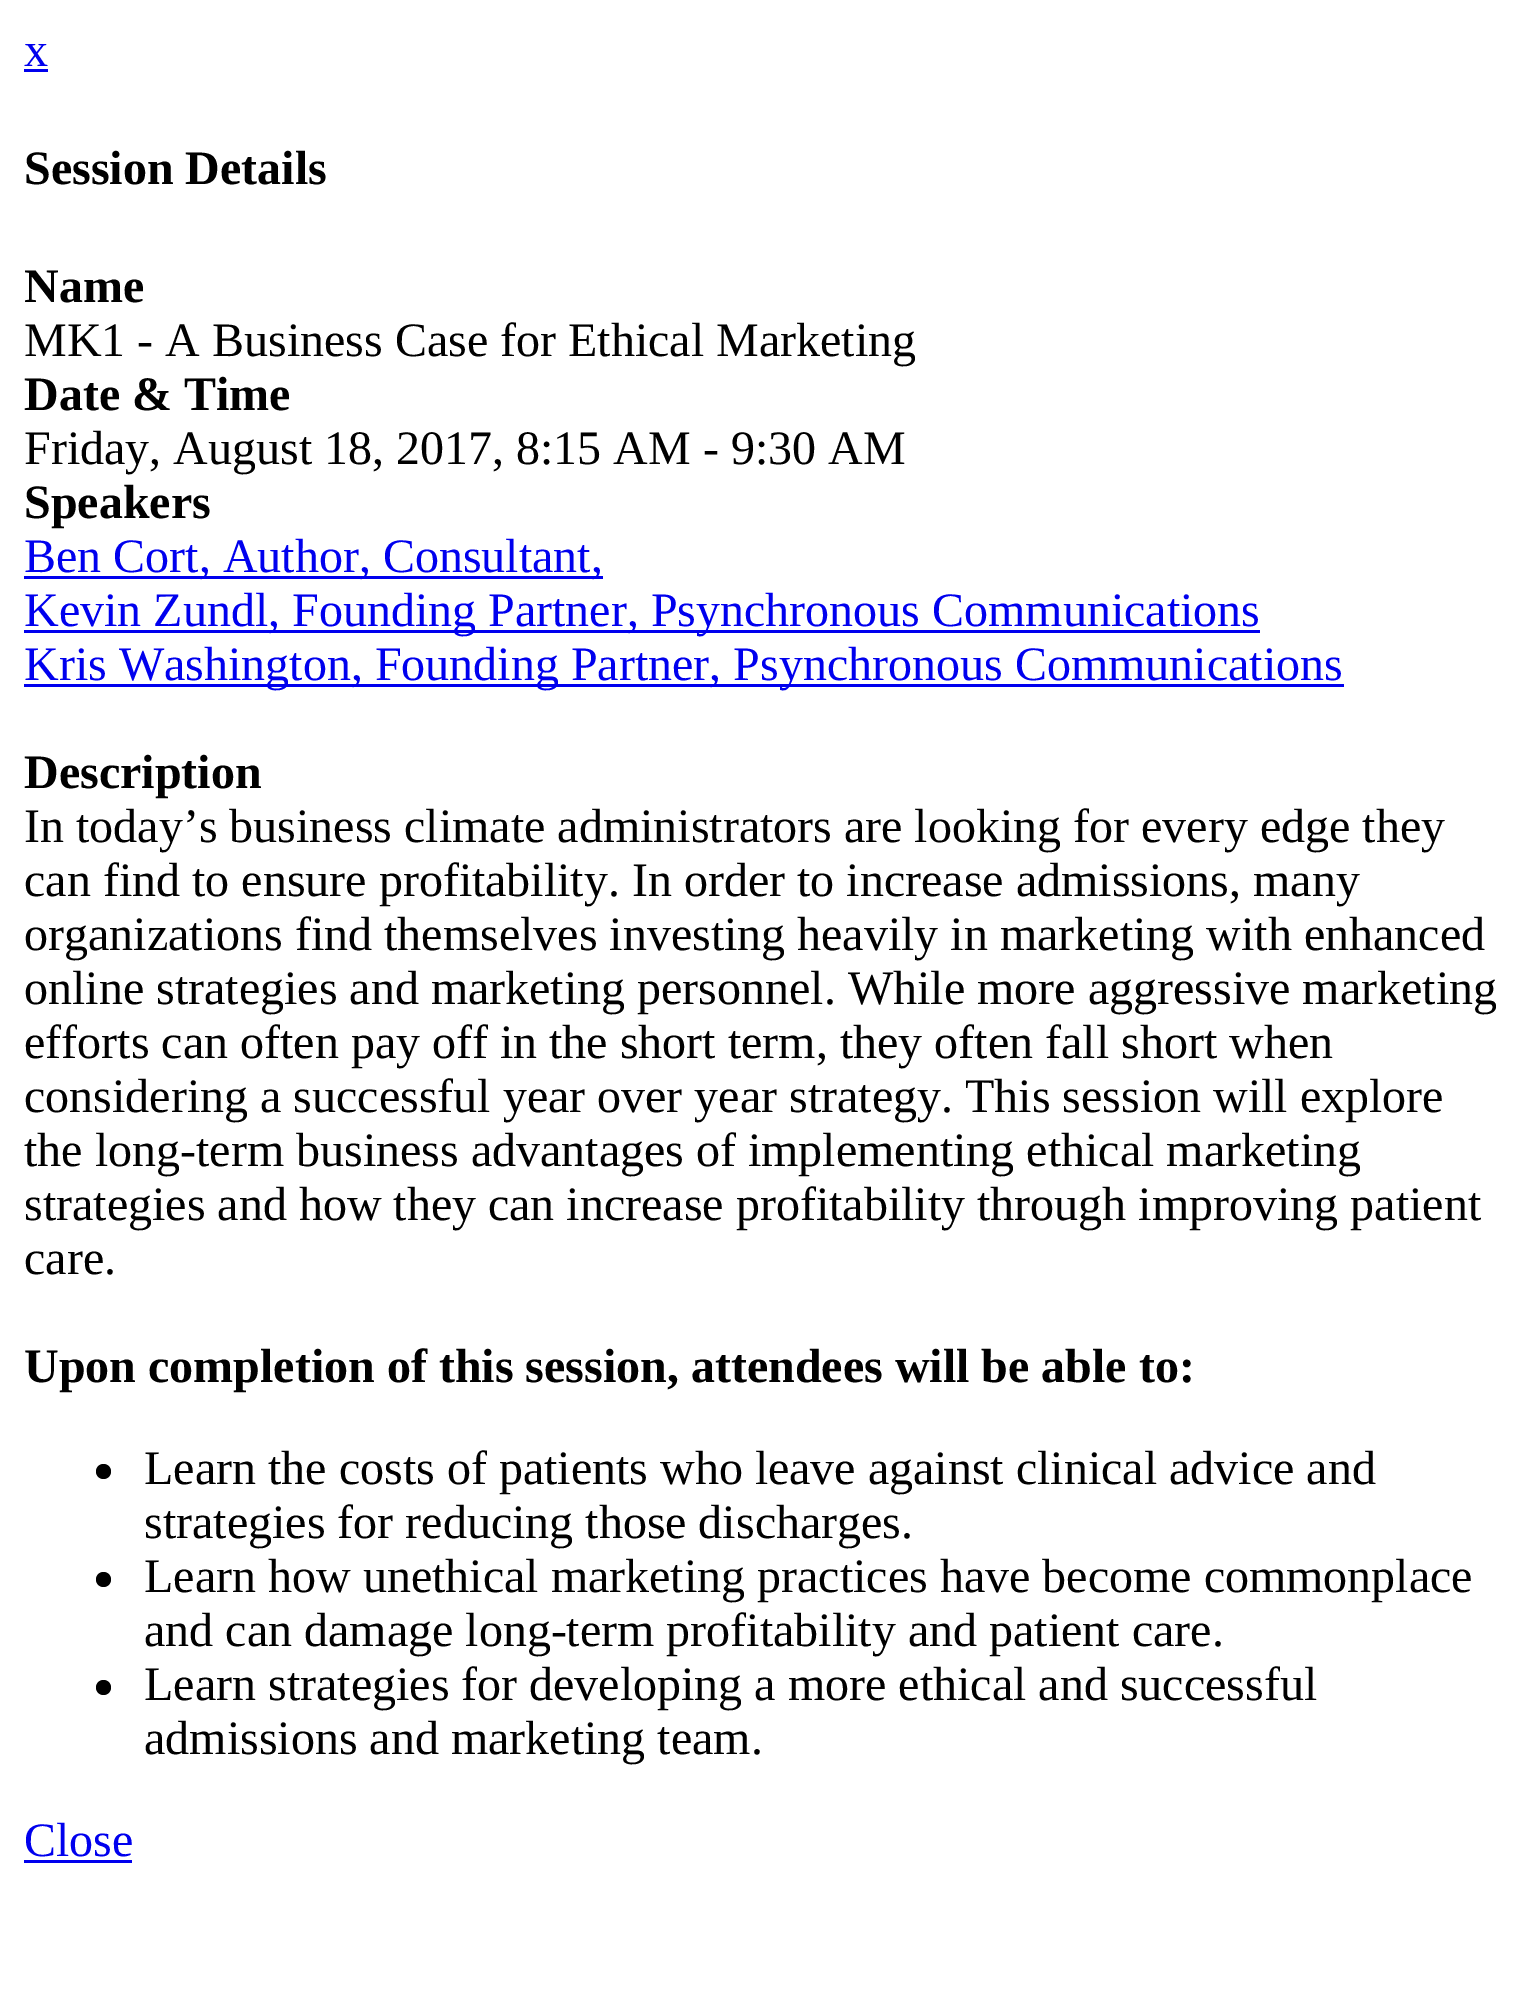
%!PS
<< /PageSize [1523 2007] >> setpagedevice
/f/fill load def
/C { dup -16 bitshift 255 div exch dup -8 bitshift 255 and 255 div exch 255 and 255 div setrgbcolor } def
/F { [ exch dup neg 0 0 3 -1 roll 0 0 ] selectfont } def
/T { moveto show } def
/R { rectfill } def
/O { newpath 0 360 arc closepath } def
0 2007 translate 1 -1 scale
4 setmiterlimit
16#FFFFFF C
0 0 1523 2007 R
/LiberationSerif-Regular 48 F
16#0000EE C
(x) 24 66 T
24 69 24 3 R
/LiberationSerif-Bold 48 F
16#000000 C
(Session Details) 24 184 T
(Name) 24 302 T
/LiberationSerif-Regular 48 F
(MK1 - A Business Case for Ethical Marketing) 24 356 T
/LiberationSerif-Bold 48 F
(Date & Time) 24 410 T
/LiberationSerif-Regular 48 F
(Friday, August 18, 2017, 8:15 AM - 9:30 AM) 24 464 T
/LiberationSerif-Bold 48 F
(Speakers) 24 518 T
16#0000EE C
24 576 579 3 R
/LiberationSerif-Regular 48 F
(Ben Cort, Author, Consultant,) 24 572 T
24 630 1236 3 R
(Kevin Zundl, Founding Partner, Psynchronous Communications) 24 626 T
24 684 1320 3 R
(Kris Washington, Founding Partner, Psynchronous Communications) 24 680 T
/LiberationSerif-Bold 48 F
16#000000 C
(Description) 24 788 T
/LiberationSerif-Regular 48 F
(In today’s business climate administrators are looking for every edge they) 24 842 T
(can find to ensure profitability. In order to increase admissions, many) 24 896 T
(organizations find themselves investing heavily in marketing with enhanced) 24 950 T
(online strategies and marketing personnel. While more aggressive marketing) 24 1004 T
(efforts can often pay off in the short term, they often fall short when) 24 1058 T
(considering a successful year over year strategy. This session will explore) 24 1112 T
(the long-term business advantages of implementing ethical marketing) 24 1166 T
(strategies and how they can increase profitability through improving patient) 24 1220 T
(care.) 24 1274 T
/LiberationSerif-Bold 48 F
(Upon completion of this session, attendees will be able to:) 24 1382 T
103.5 1471.5 7.5 O f
/LiberationSerif-Regular 48 F
(Learn the costs of patients who leave against clinical advice and) 144 1484 T
(strategies for reducing those discharges.) 144 1538 T
103.5 1579.5 7.5 O f
(Learn how unethical marketing practices have become commonplace) 144 1592 T
(and can damage long-term profitability and patient care.) 144 1646 T
103.5 1687.5 7.5 O f
(Learn strategies for developing a more ethical and successful) 144 1700 T
(admissions and marketing team.) 144 1754 T
16#0000EE C
(Close) 24 1856 T
24 1860 108 3 R
showpage
